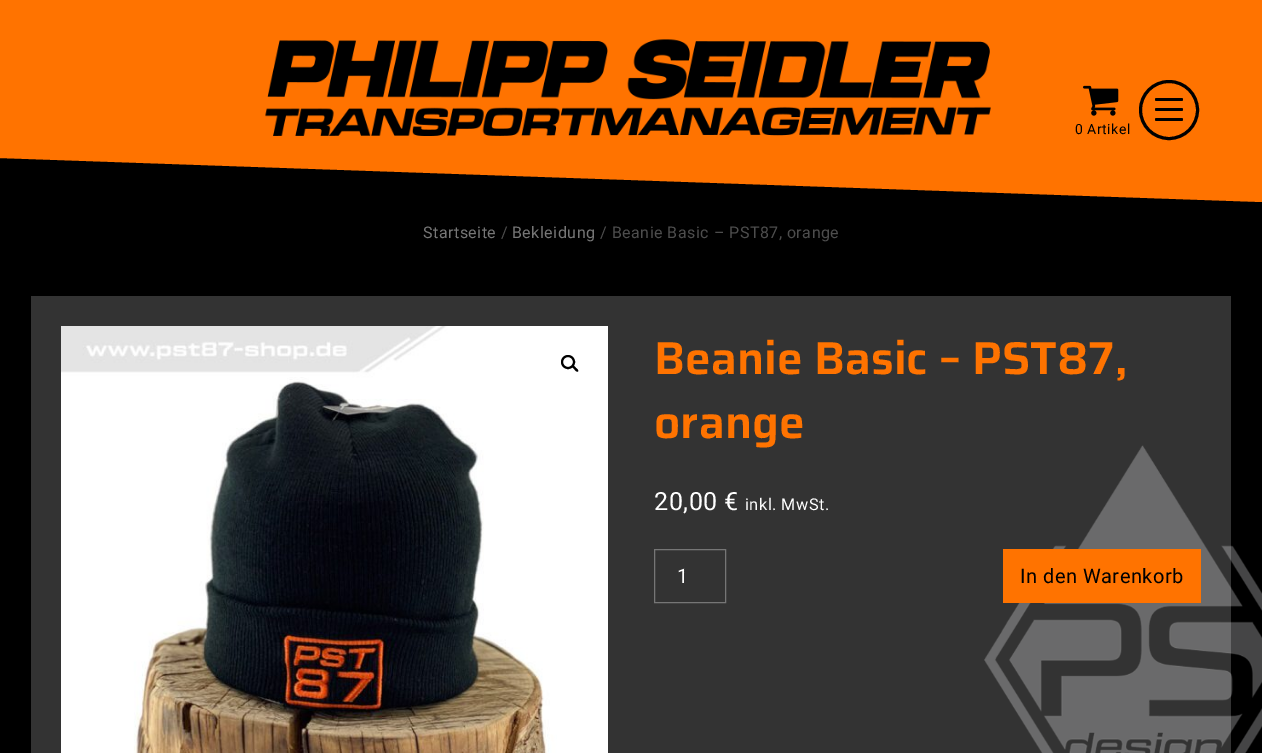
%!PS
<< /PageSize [1262 753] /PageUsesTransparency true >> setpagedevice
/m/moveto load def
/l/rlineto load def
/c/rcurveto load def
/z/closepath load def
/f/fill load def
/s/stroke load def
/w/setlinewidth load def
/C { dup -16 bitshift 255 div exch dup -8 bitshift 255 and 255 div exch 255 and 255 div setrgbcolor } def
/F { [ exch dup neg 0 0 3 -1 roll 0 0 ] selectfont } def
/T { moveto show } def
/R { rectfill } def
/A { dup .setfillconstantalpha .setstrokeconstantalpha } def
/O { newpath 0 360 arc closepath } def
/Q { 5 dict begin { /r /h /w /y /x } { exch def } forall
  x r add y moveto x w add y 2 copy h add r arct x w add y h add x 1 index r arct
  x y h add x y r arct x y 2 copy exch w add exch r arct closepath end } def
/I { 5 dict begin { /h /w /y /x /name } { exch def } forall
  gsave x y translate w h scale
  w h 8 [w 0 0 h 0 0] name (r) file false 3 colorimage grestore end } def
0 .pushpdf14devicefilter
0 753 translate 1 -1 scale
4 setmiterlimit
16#000000 C
0 0 1262 753 R
16#FF7300 C
0 -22 m 1262 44 l 0 180 l -1262 -44 l z f
16#000000 C
3 w
1169 110 28.5 O s
1155 108 28 3 1.5 Q f
1155 98 28 3 1.5 Q f
1155 118 28 3 1.5 Q f
16#FF7300 C
632 0 630 22 R
(1.rgb) 265 39 726 97 I
(2.rgb) 1083 85 36 31 I
/Roboto-Regular 14 F
16#000000 C
1075 134 m .5 0 (0 Artikel) ashow
(3.rgb) 984 445 278 308 I
/Roboto-Regular 16 F
16#767676 C
423 238 m .5 0 (Startseite) ashow
16#4D4D4D C
501 238 m .5 0 (/) ashow
16#767676 C
512 238 m .5 0 (Bekleidung) ashow
16#4D4D4D C
600 238 m .5 0 (/ Beanie Basic – PST87, orange) ashow
0.2 A
16#FFFFFF C
31 296 1200 457 R
1 A
(4.rgb) 61 326 547 427 I
16#000000 C
2 w
568 362 6 O s
572.5 366 m 1 -1.5 3 1.5 3.5 2 c .5 .5 3 2 2 3.5 c -1 1 -3 -1.5 -3.5 -2 c -.5 -1 -3.5 -2.5 -2 -3.5 c z f
/Saira-SemiBold 46 F
16#FF7300 C
(Beanie Basic – PST87,) 654 374 T
(orange) 654 438 T
/Roboto-Regular 25 F
16#FFFFFF C
654 510 m .5 0 (20,00 €) ashow
/Roboto-Regular 16.25 F
745 510 m .5 0 (inkl. MwSt.) ashow
16#767676 C
1 w
654.5 549.5 71 53 rectstroke
/Roboto-Regular 20 F
16#FFFFFF C
677 583 m .5 0 (1) ashow
16#FF7300 C
1003 549 198 54 R
16#000000 C
1020 583 m .5 0 (In den Warenkorb) ashow
.poppdf14devicefilter showpage
